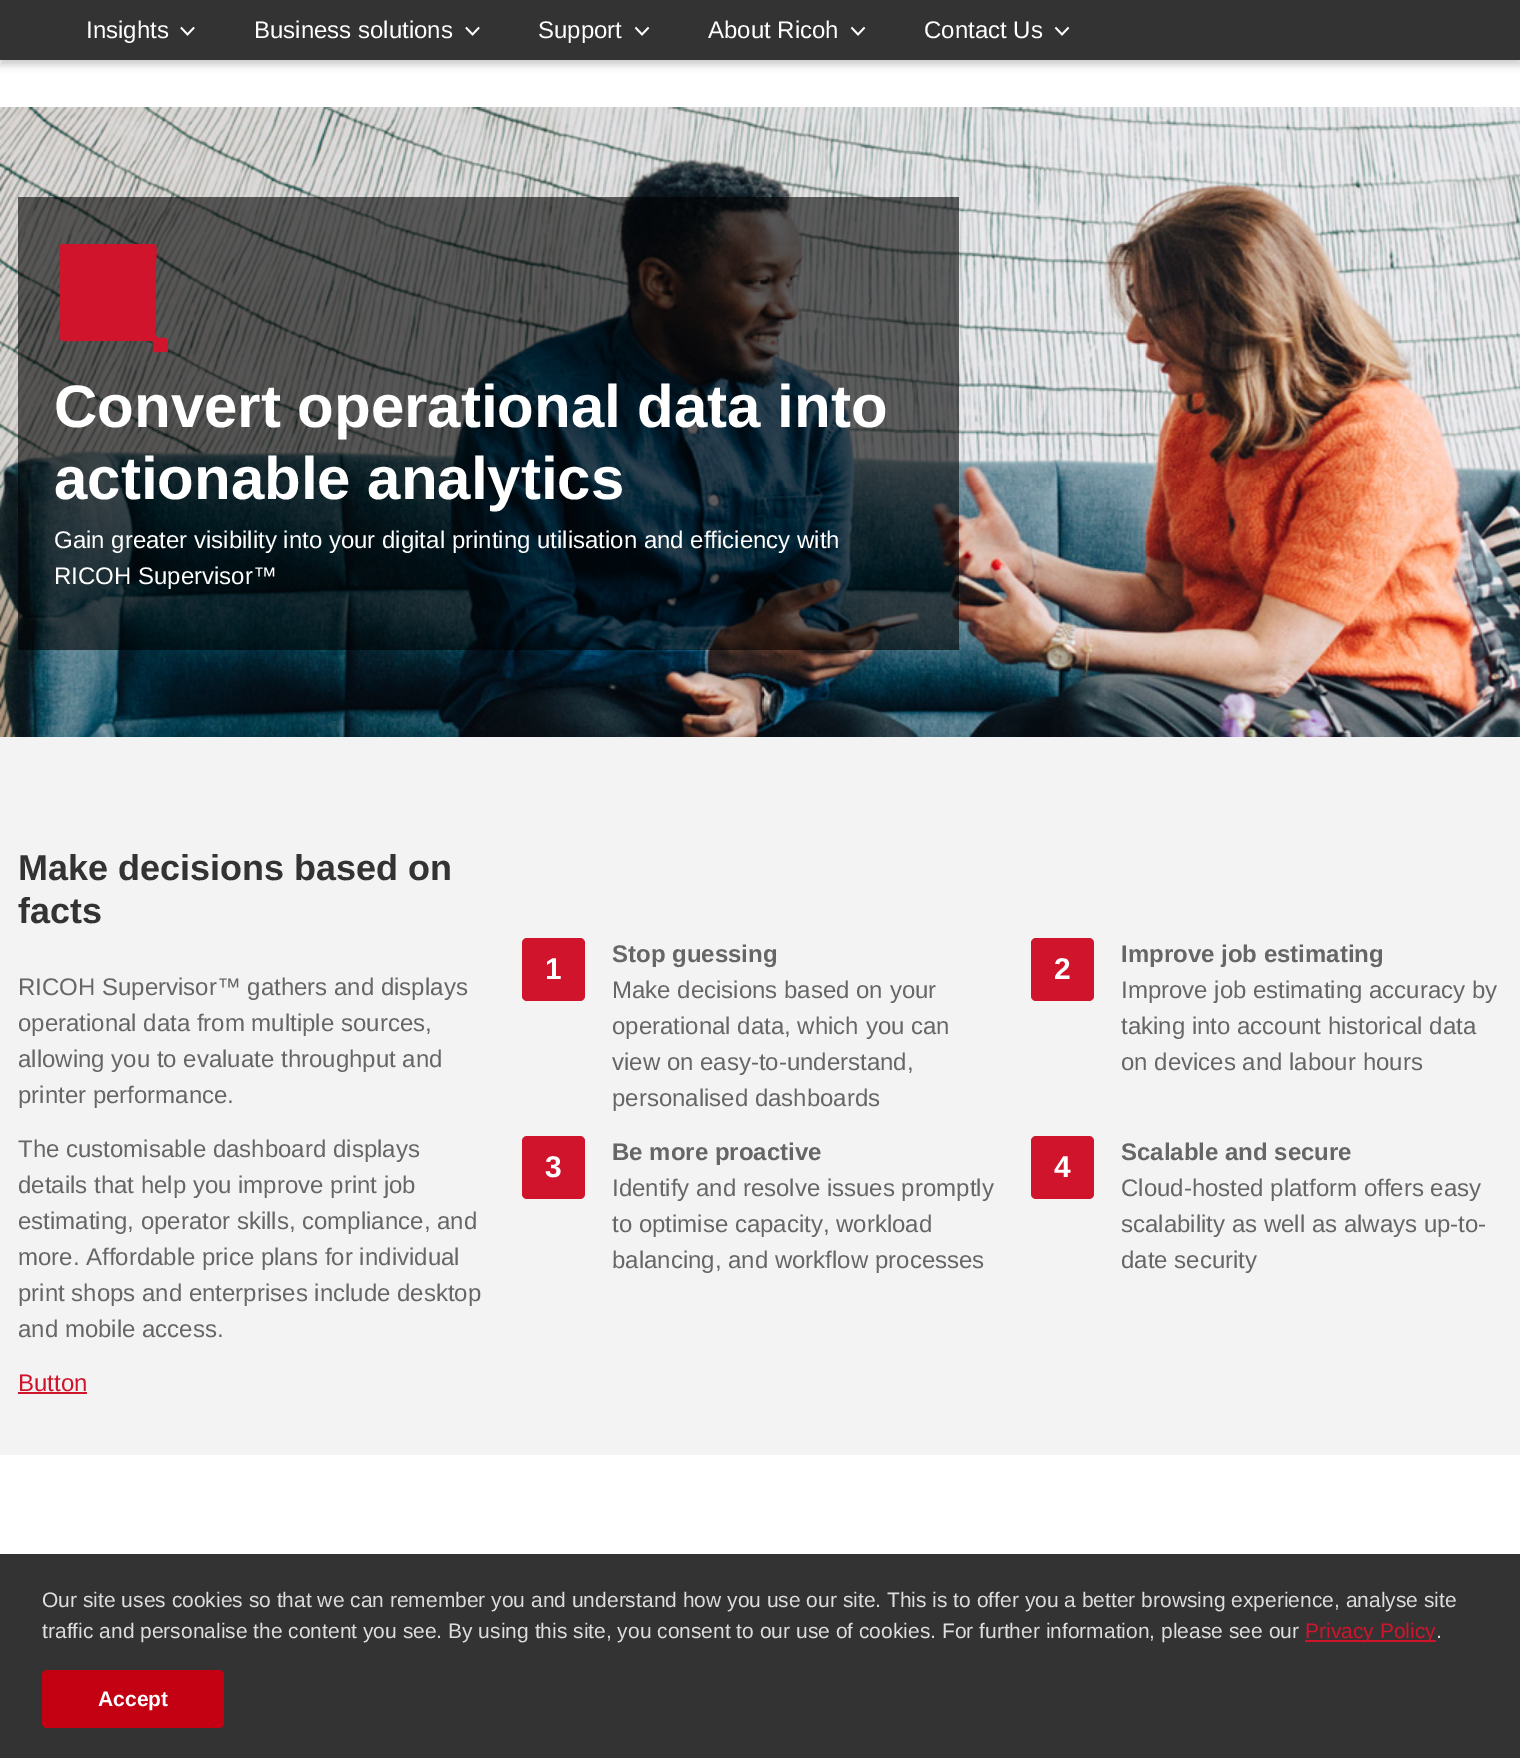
%!PS
<< /PageSize [1520 1758] /PageUsesTransparency true >> setpagedevice
/m/moveto load def
/l/rlineto load def
/c/rcurveto load def
/z/closepath load def
/f/fill load def
/C { dup -16 bitshift 255 div exch dup -8 bitshift 255 and 255 div exch 255 and 255 div setrgbcolor } def
/F { [ exch dup neg 0 0 3 -1 roll 0 0 ] selectfont } def
/T { moveto show } def
/R { rectfill } def
/A { dup .setfillconstantalpha .setstrokeconstantalpha } def
/Q { 5 dict begin { /r /h /w /y /x } { exch def } forall
  x r add y moveto x w add y 2 copy h add r arct x w add y h add x 1 index r arct
  x y h add x y r arct x y 2 copy exch w add exch r arct closepath end } def
/S { 12 dict begin { /a /b /q /h /w /y /x } { exch def } forall gsave /was 0 def
  9 -2 -9 { dup b mul 4 div /e exch def 1 sub .425 mul 2.718 exch exp 1 add a .99 .min exch div /now exch def
    1 1 now sub 1 was sub div sub A /was now def
    w h .min e 2 mul add 0 gt { x e sub y e sub w e 2 mul add h e 2 mul add
      q e add b .6 mul add w h .min 2 div e add .min 0 .max Q fill } if } for grestore end } def
/I { 5 dict begin { /h /w /y /x /name } { exch def } forall
  gsave x y translate w h scale
  w h 8 [w 0 0 h 0 0] name (r) file false 3 colorimage grestore end } def
0 .pushpdf14devicefilter
0 1758 translate 1 -1 scale
4 setmiterlimit
16#FFFFFF C
0 0 1520 1758 R
16#000000 C
0 5 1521 60 0 4 .2 S
16#333333 C
0 0 1520 60 R
/LiberationSans-Regular 24 F
16#FFFFFF C
(Insights) 86 38 T
(1.rgb) 180 26 15 10 I
(Business solutions) 254 38 T
(1.rgb) 465 26 15 10 I
(Support) 538 38 T
(2.rgb) 634 26 16 10 I
(About Ricoh) 708 38 T
(2.rgb) 850 26 16 10 I
(Contact Us) 924 38 T
(2.rgb) 1054 26 16 10 I
16#F3F3F3 C
0 737 1520 718 R
(3.rgb) 0 107 1520 630 I
0.6 A
16#000000 C
18 197 941 453 R
1 A
16#CF142B C
153 244 m -91 0 l -5 1 -2 14 -2 18 c 0 60 l 0 22 -4 19 18 19 c 74 0 l 3 2 0 8 1 10 c 1 2 5 1 7 1 c 7 0 l 2 -2 0 -6 0 -7 c 0 -9 1 -7 -8 -7 c -2 -1 l -4 -4 -1 -10 -1 -16 c 0 -59 l 0 -6 3 -18 -3 -18 c z f
/LiberationSans-Bold 60 F
16#FFFFFF C
(Convert operational data into) 54 427 T
(actionable analytics) 54 499 T
/LiberationSans-Regular 24 F
(Gain greater visibility into your digital printing utilisation and efficiency with) 54 548 T
(RICOH Supervisor™) 54 584 T
/LiberationSans-Bold 36 F
16#333333 C
(Make decisions based on) 18 880 T
(facts) 18 923 T
/LiberationSans-Regular 24 F
16#666666 C
(RICOH Supervisor™ gathers and displays) 18 995 T
(operational data from multiple sources,) 18 1031 T
(allowing you to evaluate throughput and) 18 1067 T
(printer performance.) 18 1103 T
(The customisable dashboard displays) 18 1157 T
(details that help you improve print job) 18 1193 T
(estimating, operator skills, compliance, and) 18 1229 T
(more. Affordable price plans for individual) 18 1265 T
(print shops and enterprises include desktop) 18 1301 T
(and mobile access.) 18 1337 T
16#CF142B C
(Button) 18 1391 T
18 1392 69 2 R
522 938 63 63 5 Q f
/LiberationSans-Bold 30 F
16#FFFFFF C
(1) 545 979 T
/LiberationSans-Bold 24 F
16#666666 C
(Stop guessing) 612 962 T
/LiberationSans-Regular 24 F
(Make decisions based on your) 612 998 T
(operational data, which you can) 612 1034 T
(view on easy-to-understand,) 612 1070 T
(personalised dashboards) 612 1106 T
16#CF142B C
1031 938 63 63 5 Q f
/LiberationSans-Bold 30 F
16#FFFFFF C
(2) 1054 979 T
/LiberationSans-Bold 24 F
16#666666 C
(Improve job estimating) 1121 962 T
/LiberationSans-Regular 24 F
(Improve job estimating accuracy by) 1121 998 T
(taking into account historical data) 1121 1034 T
(on devices and labour hours) 1121 1070 T
16#CF142B C
522 1136 63 63 5 Q f
/LiberationSans-Bold 30 F
16#FFFFFF C
(3) 545 1177 T
/LiberationSans-Bold 24 F
16#666666 C
(Be more proactive) 612 1160 T
/LiberationSans-Regular 24 F
(Identify and resolve issues promptly) 612 1196 T
(to optimise capacity, workload) 612 1232 T
(balancing, and workflow processes) 612 1268 T
/LiberationSans-Bold 24 F
(Scalable and secure) 1121 1160 T
16#CF142B C
1031 1136 63 63 5 Q f
/LiberationSans-Bold 30 F
16#FFFFFF C
(4) 1054 1177 T
/LiberationSans-Regular 24 F
16#666666 C
(Cloud-hosted platform offers easy) 1121 1196 T
(scalability as well as always up-to-) 1121 1232 T
(date security) 1121 1268 T
16#333333 C
0 1554 1520 204 R
/LiberationSans-Regular 21 F
16#DDDDDD C
(Our site uses cookies so that we can remember you and understand how you use our site. This is to offer you a better browsing experience, analyse site) 42 1607 T
(traffic and personalise the content you see. By using this site, you consent to our use of cookies. For further information, please see our) 42 1638 T
16#CF142B C
1305 1640 131 2 R
(Privacy Policy) 1305 1638 T
16#DDDDDD C
(.) 1436 1638 T
16#C40112 C
42 1670 182 58 5 Q f
/LiberationSans-Bold 21 F
16#FFFFFF C
(Accept) 98 1706 T
.poppdf14devicefilter showpage
